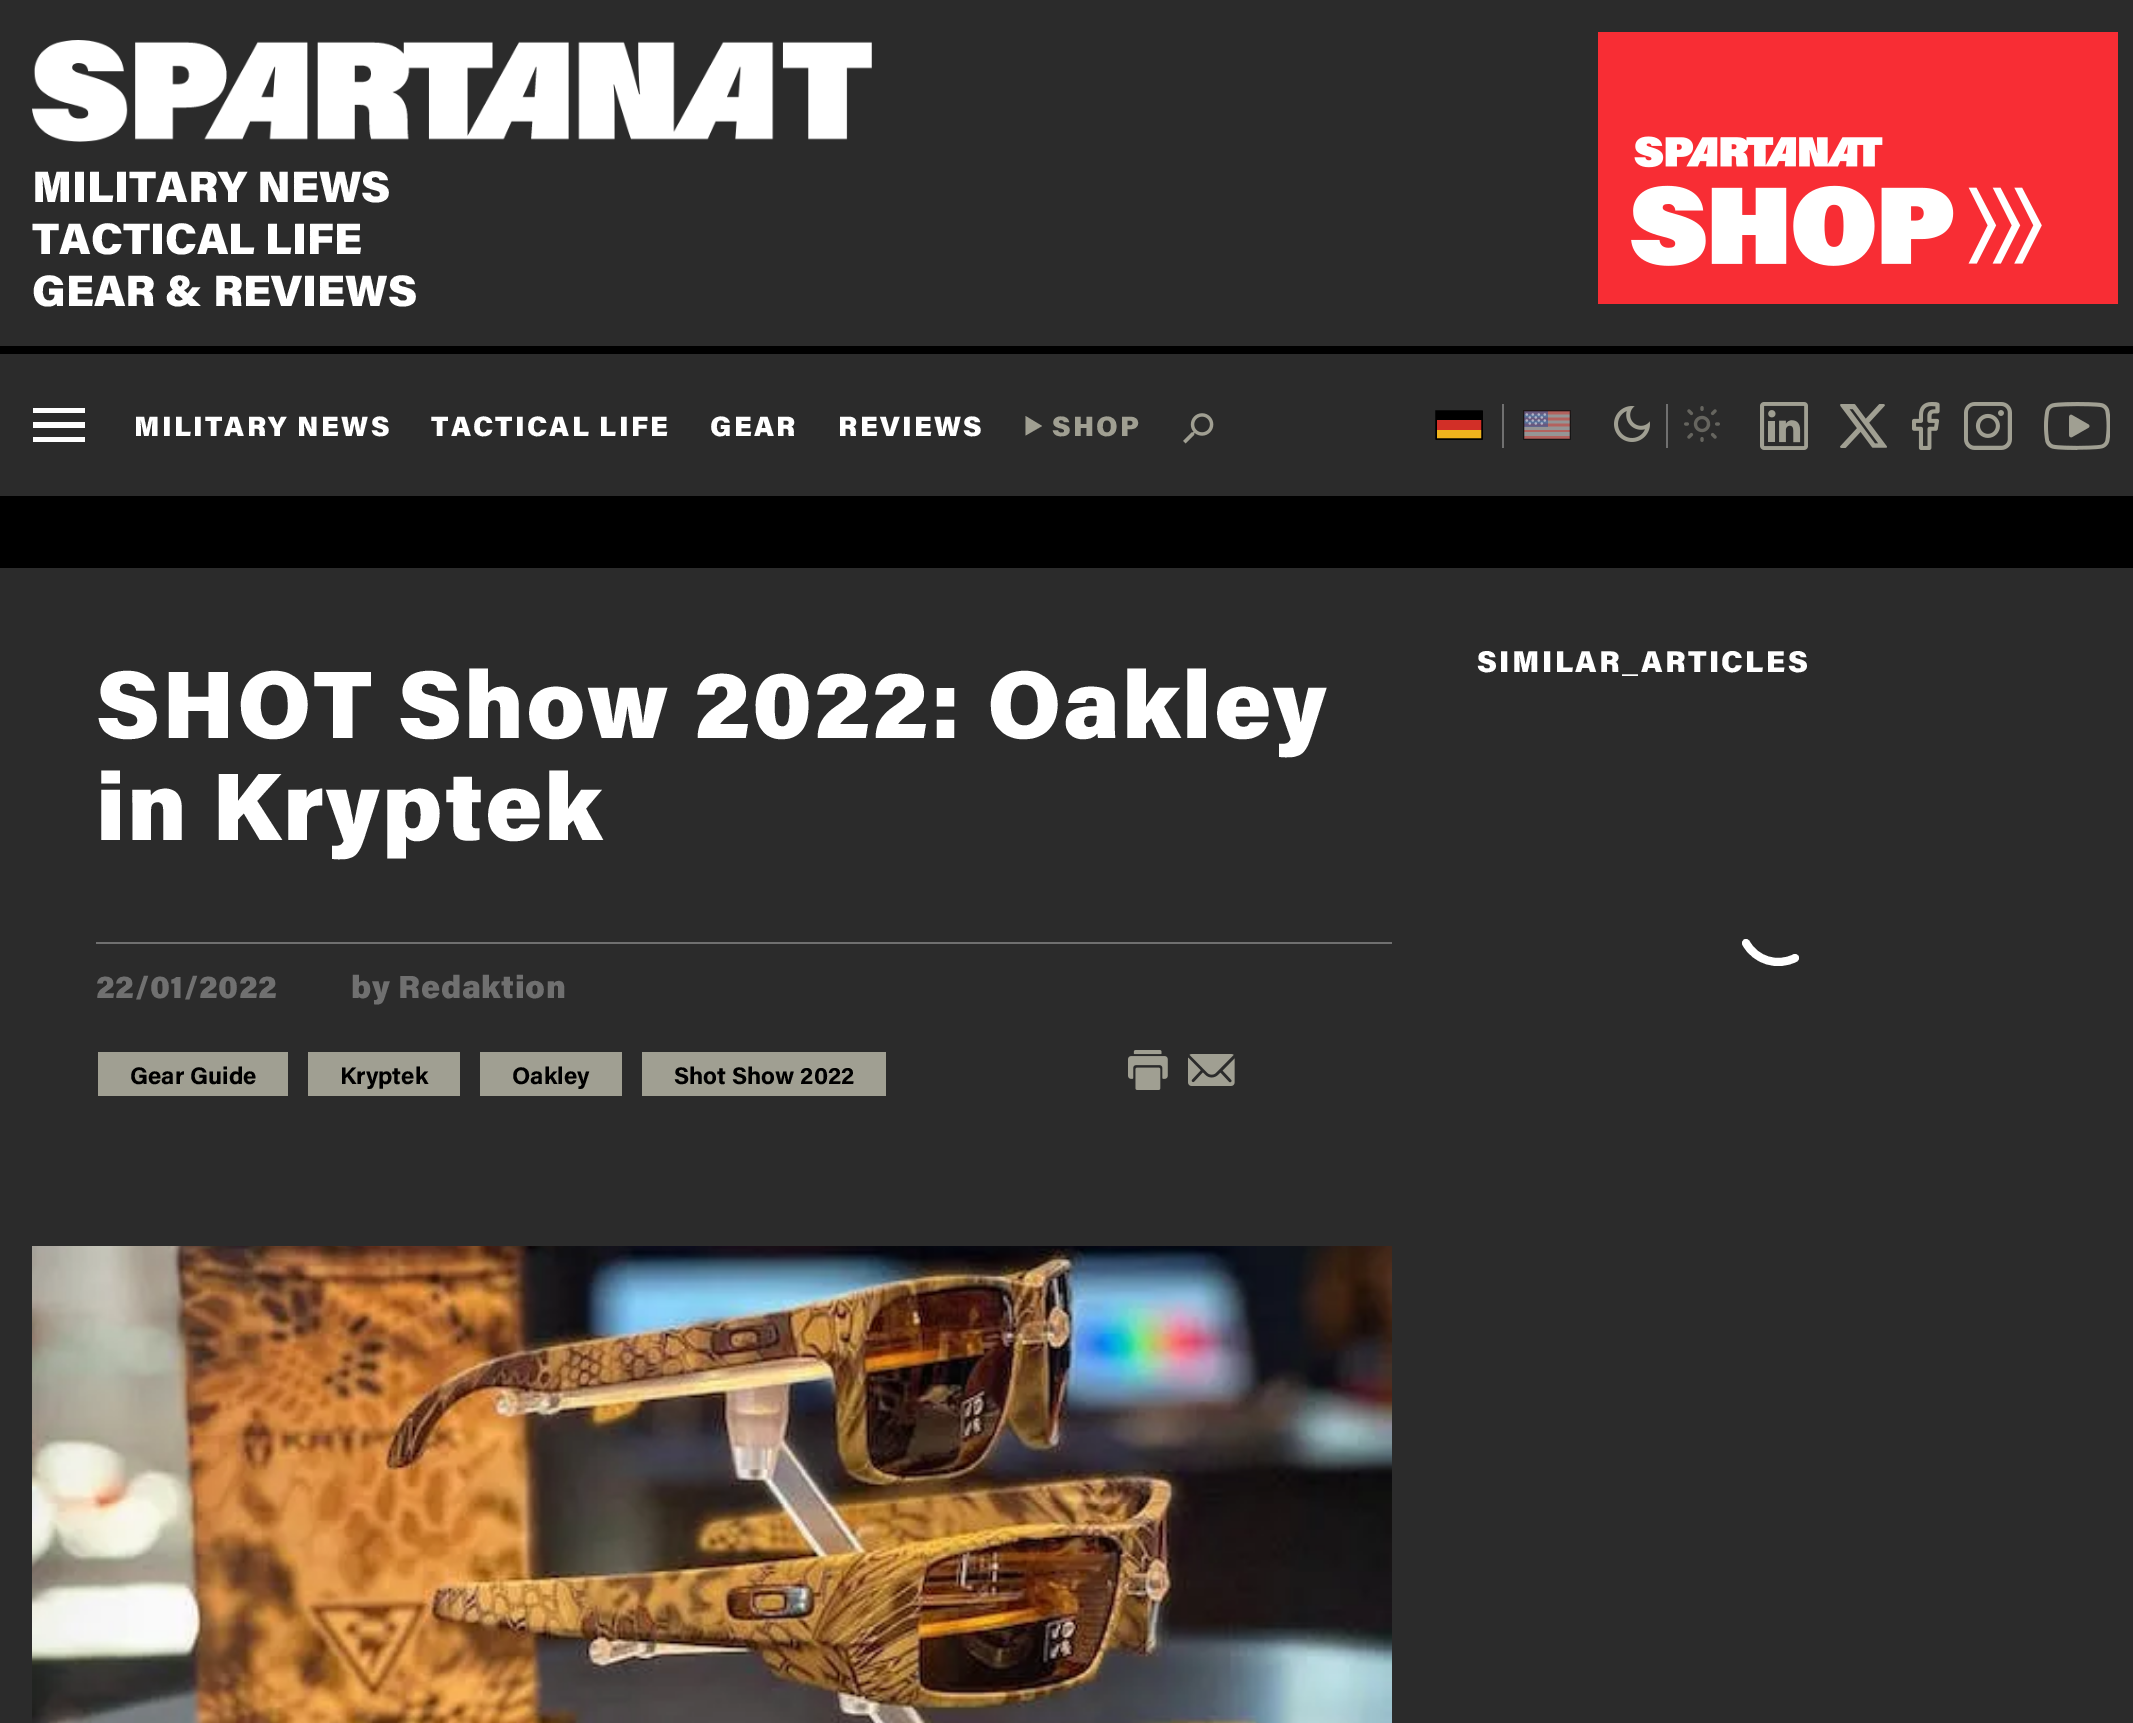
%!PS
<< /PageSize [2133 1723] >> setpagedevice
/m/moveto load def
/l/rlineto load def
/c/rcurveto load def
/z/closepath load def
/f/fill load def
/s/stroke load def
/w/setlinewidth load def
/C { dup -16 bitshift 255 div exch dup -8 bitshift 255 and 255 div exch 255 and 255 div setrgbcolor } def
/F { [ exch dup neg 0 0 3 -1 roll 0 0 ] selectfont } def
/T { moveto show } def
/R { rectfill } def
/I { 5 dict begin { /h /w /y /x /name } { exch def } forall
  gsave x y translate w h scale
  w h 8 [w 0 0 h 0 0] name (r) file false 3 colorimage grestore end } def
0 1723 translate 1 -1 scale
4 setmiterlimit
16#000000 C
0 0 2133 1723 R
16#2B2B2B C
0 0 2133 346 R
(1.rgb) 32 40 840 102 I
/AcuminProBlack-Black 44 F
16#FFFFFF C
(MILITARY NEWS) 32 202 T
(TACTICAL LIFE) 32 254 T
(GEAR & REVIEWS) 32 306 T
(2.rgb) 1598 32 520 272 I
16#2B2B2B C
0 354 2133 142 R
16#FFFFFF C
33 408 m 52 0 l 0 5 l -52 0 l z 33 422 m 52 0 l 0 6 l -52 0 l z 33 437 m 52 0 l 0 5 l -52 0 l z f
/AcuminProBlack-Black 28 F
134 436 m 2.25 0 (MILITARY NEWS) ashow
431 436 m 2.25 0 (TACTICAL LIFE) ashow
710 436 m 2.25 0 (GEAR) ashow
838 436 m 2.25 0 (REVIEWS) ashow
16#A09F92 C
1025.5 416 m 16.5 10 l -16.5 9.5 l z f
1052 436 m 2.25 0 (SHOP) ashow
(3.rgb) 1183 413 31 31 I
16#F1B31C C
1436 430 46 9 R
16#D22F27 C
1436 420 46 10 R
16#000000 C
1436 411 46 9 R
1.5 w
1 setlinecap
1 setlinejoin
1436 411 m 46 0 l 0 28 l -46 0 l z s
16#707070 C
1502 404 2 44 R
(4.rgb) 1523 410 48 30 I
(5.rgb) 1614 406 36 36 I
1666 404 2 44 R
(6.rgb) 1684 406 36 36 I
(7.rgb) 1760 402 48 48 I
(8.rgb) 1840 404 47 44 I
(9.rgb) 1912 402 28 48 I
(10.rgb) 1964 402 48 48 I
(11.rgb) 2044 402 66 48 I
16#2B2B2B C
0 568 2133 1155 R
/AcuminProBlack-Black 30 F
16#FFFFFF C
1477 672 m 2.4 0 (SIMILAR_ARTICLES) ashow
8 w
1795 958 m -17.5 9 -39.5 2.5 -49 -15 c s
/AcuminProBlack-Black 96 F
96 738 m 1.9 0 (SHOT Show 2022: Oakley) ashow
96 840 m 1.9 0 (in Kryptek) ashow
16#707070 C
96 942 1296 2 R
/AcuminProBlack-Black 32 F
96 998 m .6 0 (22/01/2022) ashow
351 998 m .6 0 (by Redaktion) ashow
16#A09F92 C
98 1052 190 44 R
/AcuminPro-Bold 24 F
16#000000 C
(Gear Guide) 130 1084 T
16#A09F92 C
308 1052 152 44 R
16#000000 C
(Kryptek) 340 1084 T
16#A09F92 C
480 1052 142 44 R
16#000000 C
(Oakley) 512 1084 T
16#A09F92 C
642 1052 244 44 R
16#000000 C
(Shot Show 2022) 674 1084 T
(12.rgb) 1128 1050 40 40 I
(13.rgb) 1188 1054 47 32 I
(14.rgb) 32 1246 1360 477 I
showpage
